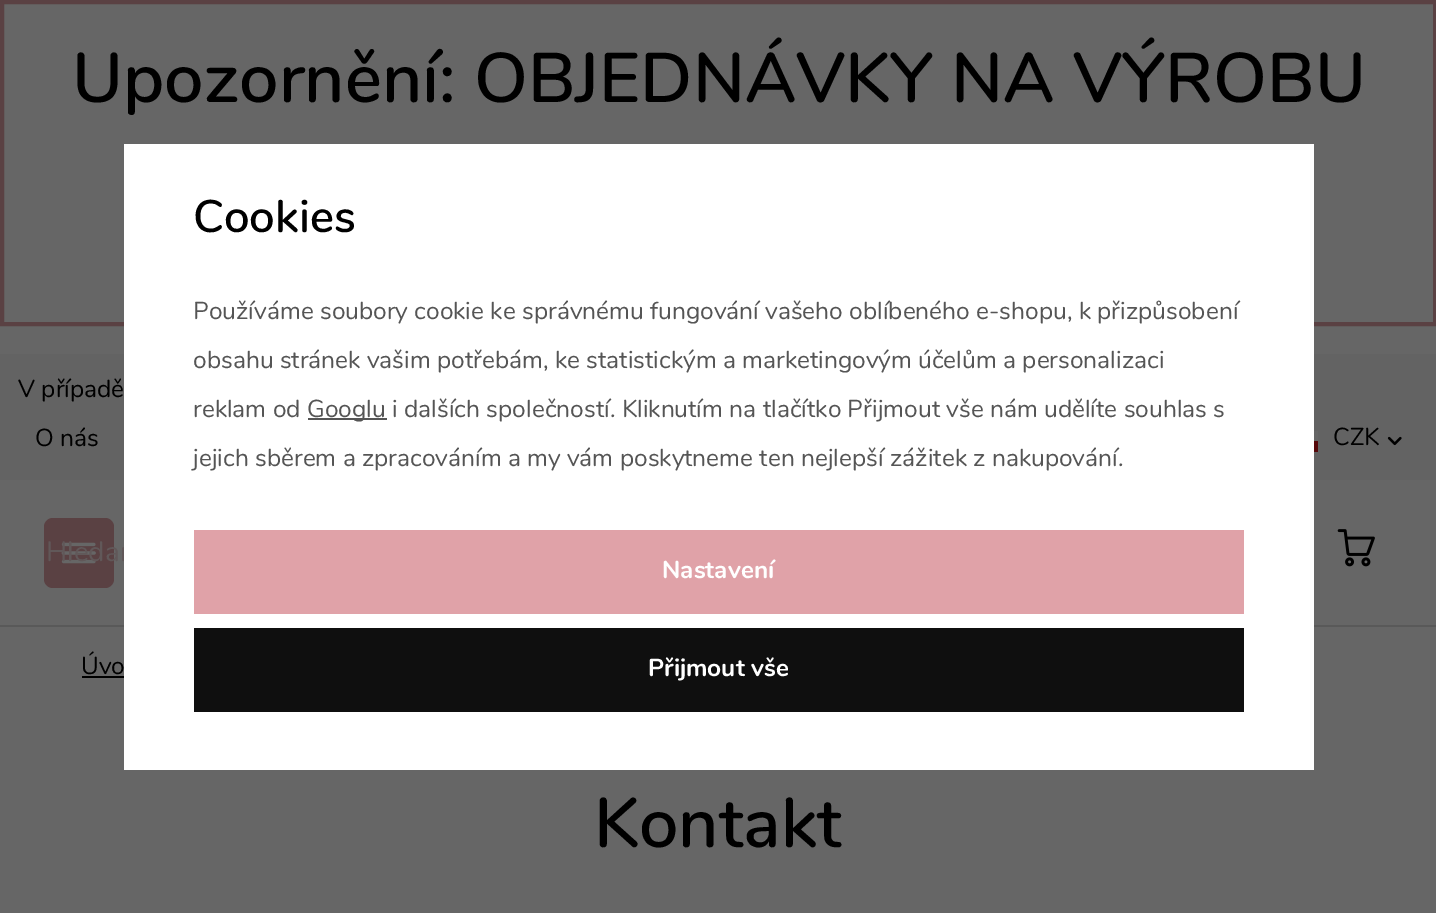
%!PS
<< /PageSize [1436 913] >> setpagedevice
/f/fill load def
/w/setlinewidth load def
/C { dup -16 bitshift 255 div exch dup -8 bitshift 255 and 255 div exch 255 and 255 div setrgbcolor } def
/F { [ exch dup neg 0 0 3 -1 roll 0 0 ] selectfont } def
/T { moveto show } def
/R { rectfill } def
/Q { 5 dict begin { /r /h /w /y /x } { exch def } forall
  x r add y moveto x w add y 2 copy h add r arct x w add y h add x 1 index r arct
  x y h add x y r arct x y 2 copy exch w add exch r arct closepath end } def
/I { 5 dict begin { /h /w /y /x /name } { exch def } forall
  gsave x y translate w h scale
  w h 8 [w 0 0 h 0 0] name (r) file false 3 colorimage grestore end } def
0 913 translate 1 -1 scale
4 setmiterlimit
16#666666 C
0 0 1436 913 R
16#5A4143 C
4 w
2 2 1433 322 rectstroke
/Nunito-SemiBold 70 F
16#000000 C
(Upozornění: OBJEDNÁVKY NA VÝROBU) 72 102 T
16#595959 C
0 625 1436 2 R
16#636363 C
0 354 1436 126 R
16#5A4143 C
44 518 70 70 9 Q f
(2.rgb) 61 542 35 22 I
/Nunito-Regular 28 F
16#615859 C
(Hledan) 46 561 T
/Nunito-Regular 24.5 F
16#000000 C
(Úvo) 81 674 T
16#FFFFFF C
124 144 1190 626 R
/Nunito-SemiBold 45.5 F
16#000000 C
(Cookies) 193 232 T
/Nunito-Regular 24.5 F
16#555555 C
(Používáme soubory cookie ke správnému fungování vašeho oblíbeného e-shopu, k přizpůsobení) 193 319 T
(obsahu stránek vašim potřebám, ke statistickým a marketingovým účelům a personalizaci) 193 368 T
(reklam od) 193 417 T
308 418 79 2 R
(Googlu i dalších společností. Kliknutím na tlačítko Přijmout vše nám udělíte souhlas s) 307 417 T
(jejich sběrem a zpracováním a my vám poskytneme ten nejlepší zážitek z nakupování.) 193 466 T
16#E0A2A8 C
194 530 1050 84 R
/Nunito-Bold 24.5 F
16#FFFFFF C
(Nastavení) 662 578 T
16#0F0F0F C
194 628 1050 84 R
16#FFFFFF C
(Přijmout vše) 648 676 T
/Nunito-Regular 24.5 F
16#000000 C
(V případě) 18 397 T
(O nás) 35 446 T
16#56080A C
1314 441 4 11 R
16#666666 C
1314 431 4 10 R
16#000000 C
(CZK) 1333 445 T
(1.rgb) 1387 436 15 10 I
(3.rgb) 1337 529 38 38 I
82 676 42 2 R
/Nunito-SemiBold 70 F
(Kontakt) 594 847 T
showpage
